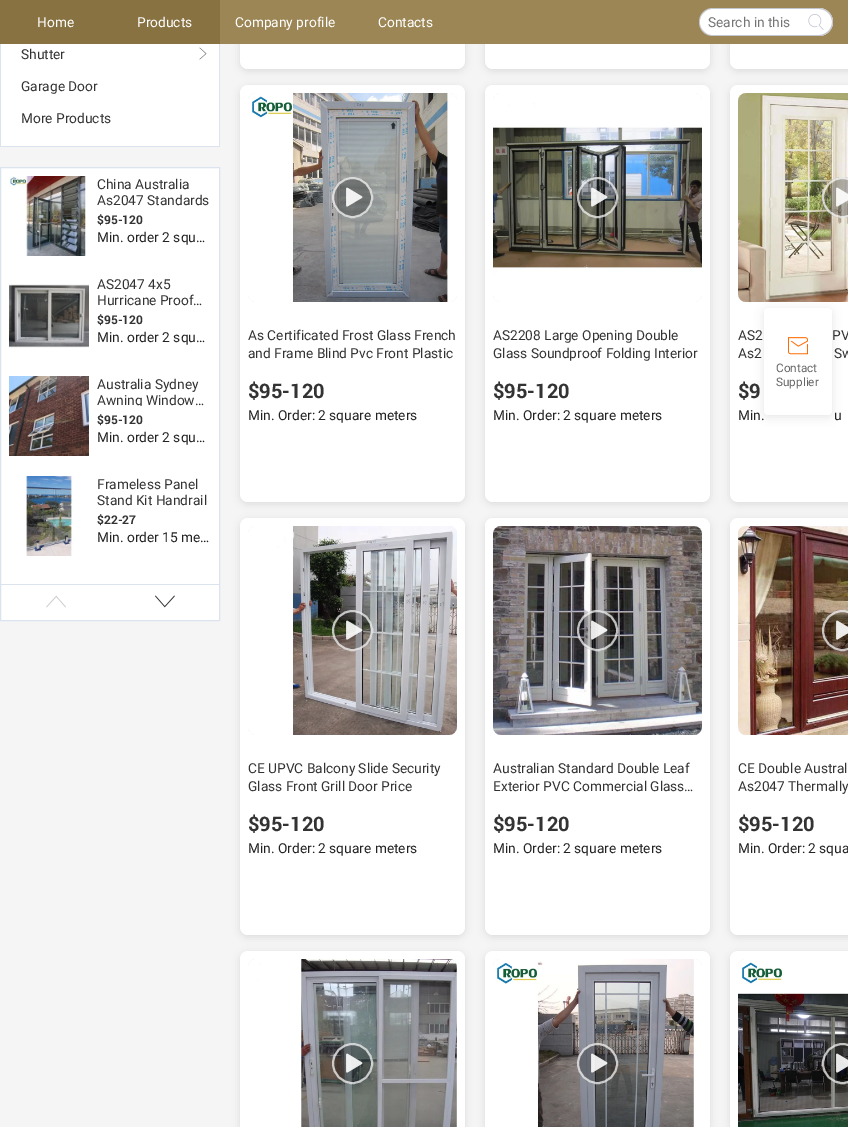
%!PS
<< /PageSize [848 1127] /PageUsesTransparency true >> setpagedevice
/m/moveto load def
/l/rlineto load def
/c/rcurveto load def
/z/closepath load def
/f/fill load def
/s/stroke load def
/q/gsave load def
/Q_/grestore load def
/w/setlinewidth load def
/C { dup -16 bitshift 255 div exch dup -8 bitshift 255 and 255 div exch 255 and 255 div setrgbcolor } def
/F { [ exch dup neg 0 0 3 -1 roll 0 0 ] selectfont } def
/T { moveto show } def
/R { rectfill } def
/A { dup .setfillconstantalpha .setstrokeconstantalpha } def
/O { newpath 0 360 arc closepath } def
/Q { 5 dict begin { /r /h /w /y /x } { exch def } forall
  x r add y moveto x w add y 2 copy h add r arct x w add y h add x 1 index r arct
  x y h add x y r arct x y 2 copy exch w add exch r arct closepath end } def
/S { 12 dict begin { /a /b /q /h /w /y /x } { exch def } forall gsave /was 0 def
  9 -2 -9 { dup b mul 4 div /e exch def 1 sub .425 mul 2.718 exch exp 1 add a .99 .min exch div /now exch def
    1 1 now sub 1 was sub div sub A /was now def
    w h .min e 2 mul add 0 gt { x e sub y e sub w e 2 mul add h e 2 mul add
      q e add b .6 mul add w h .min 2 div e add .min 0 .max Q fill } if } for grestore end } def
/I { 5 dict begin { /h /w /y /x /name } { exch def } forall
  gsave x y translate w h scale
  w h 8 [w 0 0 h 0 0] name (r) file false 3 colorimage grestore end } def
0 .pushpdf14devicefilter
0 1127 translate 1 -1 scale
4 setmiterlimit
16#F5F5F5 C
0 0 848 1127 R
16#000000 C
240 -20 225 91 8 4 .1 S
16#FFFFFF C
240 -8 225 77 8 Q f
16#000000 C
485 -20 225 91 8 4 .1 S
16#FFFFFF C
485 -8 225 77 8 Q f
16#000000 C
730 -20 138 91 8 4 .1 S
16#FFFFFF C
730 -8 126 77 8 Q f
16#9C8656 C
220 0 628 44 R
16#887242 C
0 0 220 44 R
/Roboto-Regular 14 F
16#FFFFFF C
(Home) 37 27 T
(Products) 137 27 T
(Company profile) 235 27 T
(Contacts) 378 27 T
16#C4C6CF C
713 8 m 87 0 l 0 28 l -87 0 l -8 0 -14 -6 -14 -14 c 0 -8 6 -14 14 -14 c z 713 9 m 87 0 l 0 26 l -87 0 l -7 0 -13 -6 -13 -13 c 0 -7 6 -13 13 -13 c z eofill
16#FFFFFF C
713 9 m 86.5 0 l .5 0 .5 0 .5 .5 c 0 25 l 0 .5 0 .5 -.5 .5 c -86.5 0 l -7 0 -13 -6 -13 -13 c 0 -7 6 -13 13 -13 c z f
16#757575 C
(Search in this) 708 27 T
16#FFFFFF C
800 8 m 19 0 l 7.5 0 14 6.5 14 14 c 0 7.5 -6.5 14 -14 14 c -19 0 l z f
16#C4C6CF C
800 8 m 19 0 l 7.5 0 14 6.5 14 14 c 0 7.5 -6.5 14 -14 14 c -19 0 l z 800 9 m 19 0 l 7 0 13 6 13 13 c 0 7 -6 13 -13 13 c -19 0 l z eofill
(1.rgb) 808 14 16 16 I
16#FFFFFF C
1 44 218 102 R
16#DBE3EF C
219 44 1 103 R
0 146 220 1 R
0 44 1 103 R
16#333333 C
(Shutter) 21 59 T
(2.rgb) 199 47 8 13 I
(Garage Door) 21 91 T
(More Products) 21 123 T
16#FFFFFF C
.5 167.5 m 219 0 l 0 453 l -219 0 l z q f Q_
16#DBE3EF C
s
(3.rgb) 9 176 77 80 I
16#333333 C
(China Australia) 97 189 T
(As2047 Standards) 97 205 T
/Roboto-Bold 12 F
($95-120) 97 224 T
/Roboto-Regular 14 F
16#222222 C
(Min. order 2 squ…) 97 242 T
(4.rgb) 9 284 80 64 I
16#333333 C
(AS2047 4x5) 97 289 T
(Hurricane Proof…) 97 305 T
/Roboto-Bold 12 F
($95-120) 97 324 T
/Roboto-Regular 14 F
16#222222 C
(Min. order 2 squ…) 97 342 T
(5.rgb) 9 376 80 80 I
16#333333 C
(Australia Sydney) 97 389 T
q
97 376 114 30 rectclip
(Awning Window…) 97 405 T
Q_
/Roboto-Bold 12 F
($95-120) 97 424 T
/Roboto-Regular 14 F
16#222222 C
(Min. order 2 squ…) 97 442 T
(6.rgb) 26 476 47 80 I
16#333333 C
(Frameless Panel) 97 489 T
(Stand Kit Handrail) 97 505 T
/Roboto-Bold 12 F
($22-27) 97 524 T
/Roboto-Regular 14 F
16#222222 C
(Min. order 15 me…) 97 542 T
16#DBE3EF C
1 584 218 1 R
(7.rgb) 46 595 20 13 I
(8.rgb) 155 595 20 13 I
16#000000 C
240 87 225 417 8 4 .1 S
16#FFFFFF C
240 85 225 417 8 Q f
(9.rgb) 248 93 209 209 I
0.27 A
16#000000 C
352.5 197.5 20.5 O f
0.72 A
16#FFFFFF C
2 w
352.5 197.5 19.5 O s
1 A
(10.rgb) 346 187 17 20 I
16#333333 C
(As Certificated Frost Glass French) 248 340 T
(and Frame Blind Pvc Front Plastic) 248 358 T
/Roboto-Bold 20 F
($95-120) 248 398 T
/Roboto-Regular 14 F
16#222222 C
(Min. Order: 2 square meters) 248 420 T
16#000000 C
485 87 225 417 8 4 .1 S
16#FFFFFF C
485 85 225 417 8 Q f
(11.rgb) 493 93 209 209 I
0.27 A
16#000000 C
597.5 197.5 20.5 O f
0.72 A
16#FFFFFF C
597.5 197.5 19.5 O s
1 A
(12.rgb) 591 187 17 20 I
16#333333 C
(AS2208 Large Opening Double) 493 340 T
(Glass Soundproof Folding Interior) 493 358 T
/Roboto-Bold 20 F
($95-120) 493 398 T
/Roboto-Regular 14 F
16#222222 C
(Min. Order: 2 square meters) 493 420 T
16#000000 C
730 87 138 417 8 4 .1 S
16#FFFFFF C
730 85 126 417 8 Q f
(13.rgb) 738 93 110 209 I
0.27 A
16#000000 C
842.5 197.5 20.5 O f
0.72 A
16#FFFFFF C
842.5 197.5 19.5 O s
1 A
(14.rgb) 836 187 12 20 I
16#333333 C
(AS2) 738 340 T
(PV) 832 340 T
(As2) 738 358 T
(Sw) 834 358 T
/Roboto-Bold 20 F
($9) 738 398 T
/Roboto-Regular 14 F
16#222222 C
(Min.) 738 420 T
(u) 834 420 T
16#000000 C
240 520 225 417 8 4 .1 S
16#FFFFFF C
240 518 225 417 8 Q f
(15.rgb) 248 526 209 209 I
0.27 A
16#000000 C
352.5 630.5 20.5 O f
0.72 A
16#FFFFFF C
352.5 630.5 19.5 O s
1 A
(16.rgb) 346 620 17 20 I
16#333333 C
(CE UPVC Balcony Slide Security) 248 773 T
(Glass Front Grill Door Price) 248 791 T
/Roboto-Bold 20 F
($95-120) 248 831 T
/Roboto-Regular 14 F
16#222222 C
(Min. Order: 2 square meters) 248 853 T
16#000000 C
485 520 225 417 8 4 .1 S
16#FFFFFF C
485 518 225 417 8 Q f
(17.rgb) 493 526 209 209 I
0.27 A
16#000000 C
597.5 630.5 20.5 O f
0.72 A
16#FFFFFF C
597.5 630.5 19.5 O s
1 A
(18.rgb) 591 620 17 20 I
16#333333 C
(Australian Standard Double Leaf) 493 773 T
(Exterior PVC Commercial Glass…) 493 791 T
/Roboto-Bold 20 F
($95-120) 493 831 T
/Roboto-Regular 14 F
16#222222 C
(Min. Order: 2 square meters) 493 853 T
16#000000 C
730 520 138 417 8 4 .1 S
16#FFFFFF C
730 518 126 417 8 Q f
(19.rgb) 738 526 110 209 I
0.27 A
16#000000 C
842.5 630.5 20.5 O f
0.72 A
16#FFFFFF C
842.5 630.5 19.5 O s
1 A
(20.rgb) 836 620 12 20 I
16#333333 C
(CE Double Austral) 738 773 T
(As2047 Thermally) 738 791 T
/Roboto-Bold 20 F
($95-120) 738 831 T
/Roboto-Regular 14 F
16#222222 C
(Min. Order: 2 squa) 738 853 T
16#000000 C
240 953 225 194 8 4 .1 S
16#FFFFFF C
240 951 225 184 8 Q f
(21.rgb) 248 959 209 168 I
0.27 A
16#000000 C
352.5 1063.5 20.5 O f
0.72 A
16#FFFFFF C
352.5 1063.5 19.5 O s
1 A
(22.rgb) 346 1053 17 20 I
16#000000 C
485 953 225 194 8 4 .1 S
16#FFFFFF C
485 951 225 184 8 Q f
(23.rgb) 493 959 209 168 I
0.27 A
16#000000 C
597.5 1063.5 20.5 O f
0.72 A
16#FFFFFF C
597.5 1063.5 19.5 O s
1 A
(24.rgb) 591 1053 17 20 I
16#000000 C
730 953 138 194 8 4 .1 S
16#FFFFFF C
730 951 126 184 8 Q f
(25.rgb) 738 959 110 168 I
0.27 A
16#000000 C
842.5 1063.5 20.5 O f
0.72 A
16#FFFFFF C
842.5 1063.5 19.5 O s
1 A
(26.rgb) 836 1053 12 20 I
16#000000 C
764 310 68 107 4 5 .1 S
16#FFFFFF C
764 308 68 107 4 Q f
(27.rgb) 788 337 20 18 I
/Roboto-Regular 12 F
16#666666 C
(Contact) 776 372 T
(Supplier) 776 386 T
.poppdf14devicefilter showpage
